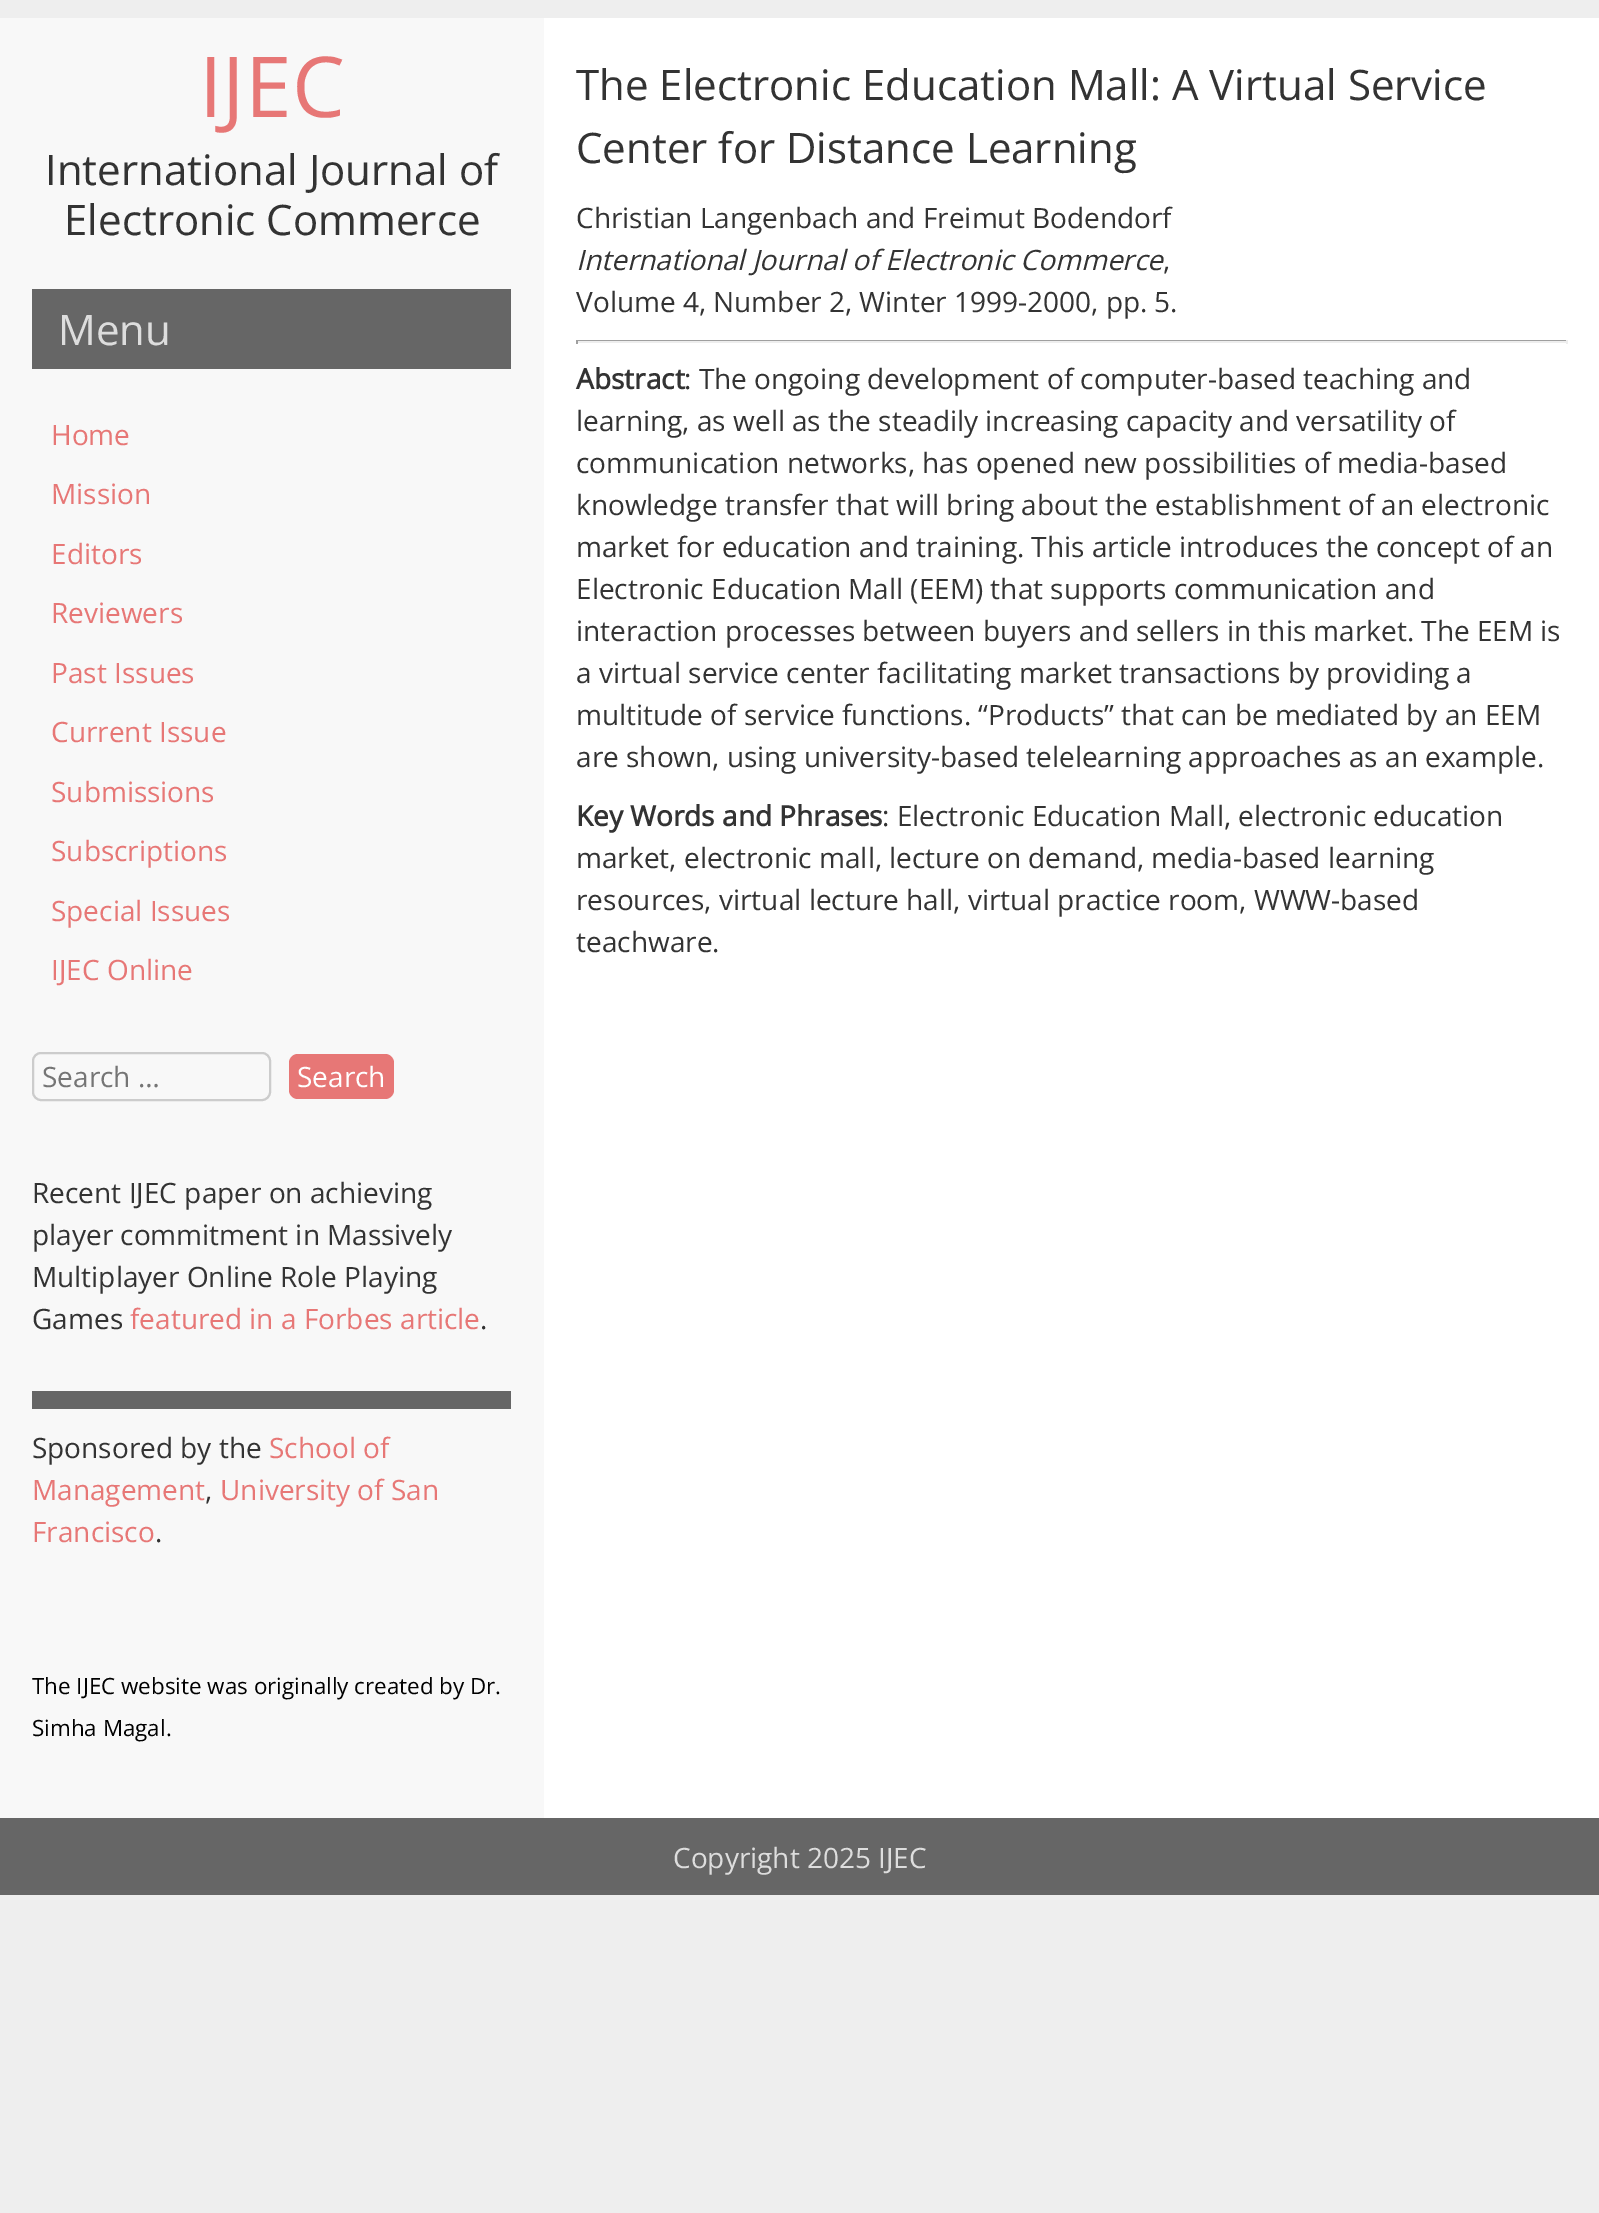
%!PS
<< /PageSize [1599 2213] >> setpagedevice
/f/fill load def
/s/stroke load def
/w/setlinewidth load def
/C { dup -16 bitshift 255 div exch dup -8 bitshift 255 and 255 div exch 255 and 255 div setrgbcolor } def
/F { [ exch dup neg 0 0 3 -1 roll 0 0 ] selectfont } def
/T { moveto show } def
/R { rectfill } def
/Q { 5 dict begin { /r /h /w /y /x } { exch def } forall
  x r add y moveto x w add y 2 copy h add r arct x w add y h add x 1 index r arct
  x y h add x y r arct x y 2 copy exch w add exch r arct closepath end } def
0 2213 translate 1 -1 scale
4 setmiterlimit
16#EEEEEE C
0 0 1599 2213 R
16#FFFFFF C
544 18 1055 1800 R
16#F8F8F8 C
0 18 544 1800 R
/OpenSans-Regular 84 F
16#E77776 C
(IJEC) 199 117 T
/OpenSans-Regular 42 F
16#333333 C
(International Journal of) 45 185 T
(Electronic Commerce) 64 235 T
16#666666 C
32 289 479 80 R
16#DDDDDD C
(Menu) 58 345 T
/OpenSans-Regular 28 F
16#E77776 C
(Home) 51 445 T
(Mission) 51 504 T
(Editors) 51 564 T
(Reviewers) 51 623 T
(Past Issues) 51 683 T
(Current Issue) 51 742 T
(Submissions) 51 802 T
(Subscriptions) 51 861 T
(Special Issues) 51 921 T
(IJEC Online) 51 980 T
16#CCCCCC C
2 w
33 1053 237 47 8 Q s
16#757575 C
(Search …) 42 1087 T
16#E77776 C
289 1054 105 45 9 Q f
16#FFFFFF C
(Search) 297 1087 T
16#333333 C
(Recent IJEC paper on achieving) 32 1203 T
(player commitment in Massively) 32 1245 T
(Multiplayer Online Role Playing) 32 1287 T
(Games) 32 1329 T
16#E77776 C
(featured in a Forbes article) 130 1329 T
16#333333 C
(.) 480 1329 T
16#666666 C
32 1391 479 18 R
16#333333 C
(Sponsored by the) 32 1458 T
16#E77776 C
(School of) 269 1458 T
(Management) 32 1500 T
16#333333 C
(,) 205 1500 T
16#E77776 C
(University of San) 220 1500 T
(Francisco) 32 1542 T
16#333333 C
(.) 155 1542 T
/OpenSans-Regular 22.4 F
16#000000 C
(The IJEC website was originally created by Dr.) 32 1694 T
(Simha Magal.) 32 1736 T
/OpenSans-Regular 42 F
16#333333 C
(The Electronic Education Mall: A Virtual Service) 576 100 T
(Center for Distance Learning) 576 163 T
/OpenSans-Regular 28 F
(Christian Langenbach and Freimut Bodendorf) 576 228 T
/OpenSans-Italic 28 F
(International Journal of Electronic Commerce) 576 270 T
/OpenSans-Regular 28 F
(,) 1163 270 T
(Volume 4, Number 2, Winter 1999-2000, pp. 5.) 576 312 T
16#9F9F9F C
576 340 992 1 R
16#EEEEEE C
1566 340 2 4 R
576 341 992 2 R
16#9F9F9F C
576 340 2 4 R
/OpenSans-Bold 28 F
16#333333 C
(Abstract) 576 389 T
/OpenSans-Regular 28 F
(: The ongoing development of computer-based teaching and) 684 389 T
(learning, as well as the steadily increasing capacity and versatility of) 576 431 T
(communication networks, has opened new possibilities of media-based) 576 473 T
(knowledge transfer that will bring about the establishment of an electronic) 576 515 T
(market for education and training. This article introduces the concept of an) 576 557 T
(Electronic Education Mall \(EEM\) that supports communication and) 576 599 T
(interaction processes between buyers and sellers in this market. The EEM is) 576 641 T
(a virtual service center facilitating market transactions by providing a) 576 683 T
(multitude of service functions. “Products” that can be mediated by an EEM) 576 725 T
(are shown, using university-based telelearning approaches as an example.) 576 767 T
/OpenSans-Bold 28 F
(Key Words and Phrases) 576 826 T
/OpenSans-Regular 28 F
(: Electronic Education Mall, electronic education) 882 826 T
(market, electronic mall, lecture on demand, media-based learning) 576 868 T
(resources, virtual lecture hall, virtual practice room, WWW-based) 576 910 T
(teachware.) 576 952 T
16#666666 C
0 1818 1599 77 R
16#DDDDDD C
(Copyright 2025 IJEC) 673 1868 T
showpage
